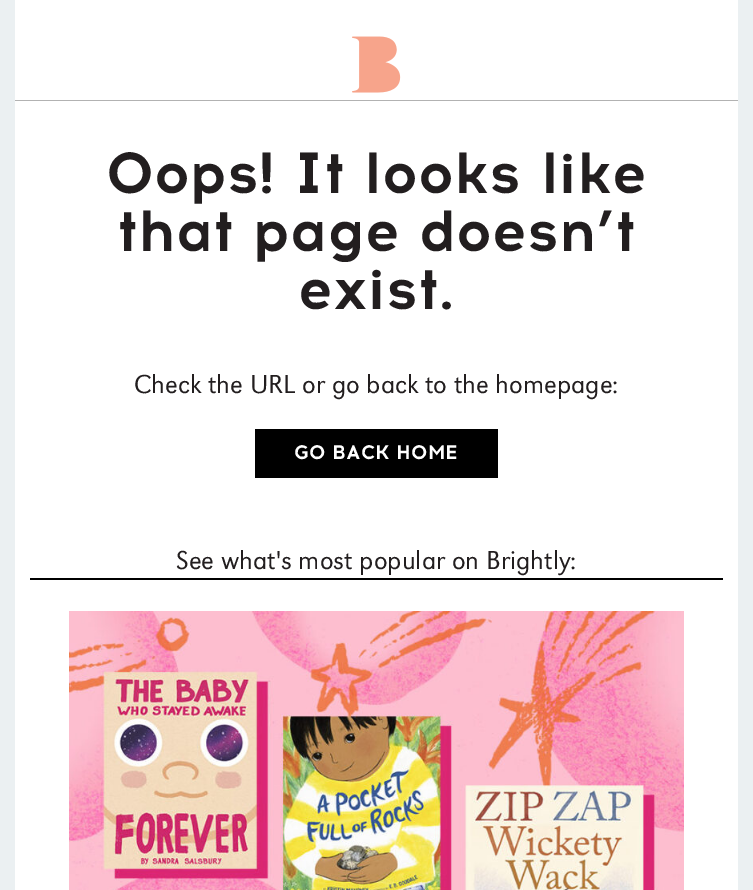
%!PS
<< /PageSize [753 890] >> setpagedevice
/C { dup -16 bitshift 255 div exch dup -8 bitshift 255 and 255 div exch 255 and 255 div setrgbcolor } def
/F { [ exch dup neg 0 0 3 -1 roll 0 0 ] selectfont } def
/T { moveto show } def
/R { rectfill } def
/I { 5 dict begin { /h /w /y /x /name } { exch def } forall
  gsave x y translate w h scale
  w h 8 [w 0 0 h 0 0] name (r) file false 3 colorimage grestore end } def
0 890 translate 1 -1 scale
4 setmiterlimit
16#EBF0F2 C
0 0 753 890 R
16#FFFFFF C
15 0 723 890 R
(1.rgb) 352 36 49 57 I
16#B2B2B2 C
15 100 723 1 R
/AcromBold-Regular 58 F
16#221E1F C
(Oops! It looks like) 106 193 T
(that page doesn’t) 117 251 T
(exist.) 298 309 T
/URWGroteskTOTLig-Light 27 F
(Check the URL or go back to the homepage:) 134 393 T
16#000000 C
255 429 243 49 R
/AcromBold-Regular 19.75 F
16#FFFFFF C
(GO BACK HOME) 294 459 T
16#000000 C
30 578 693 2 R
/URWGroteskTOTLig-Light 27 F
16#221E1F C
(See what's most popular on Brightly:) 176 569 T
(2.rgb) 69 611 615 279 I
showpage
